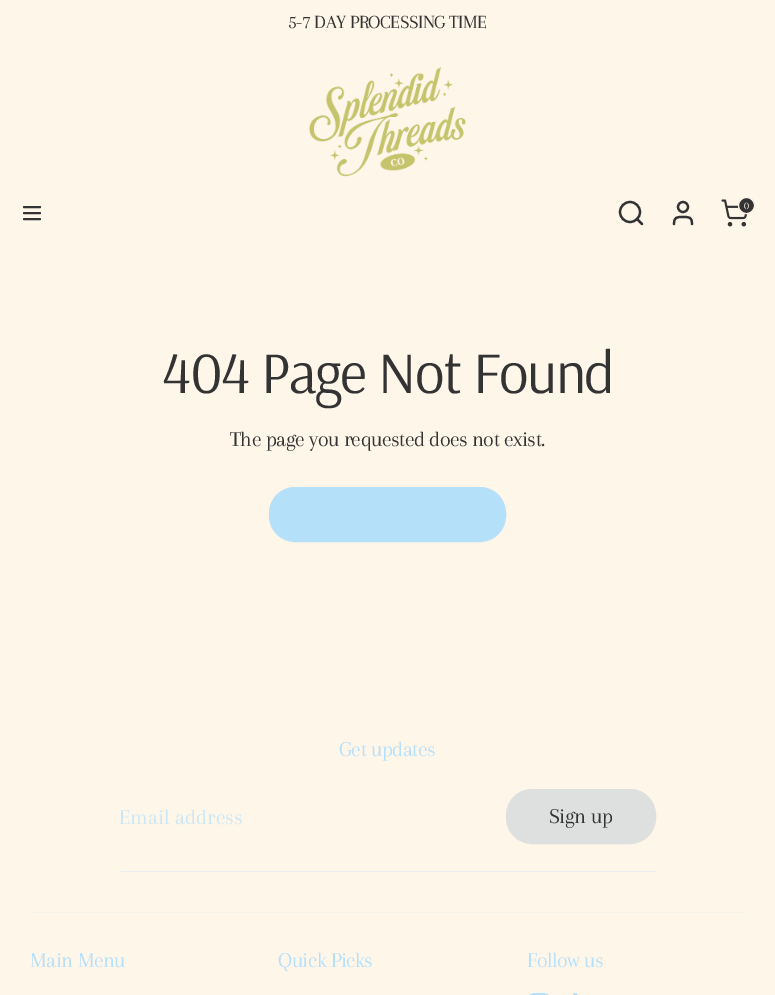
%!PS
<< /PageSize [775 995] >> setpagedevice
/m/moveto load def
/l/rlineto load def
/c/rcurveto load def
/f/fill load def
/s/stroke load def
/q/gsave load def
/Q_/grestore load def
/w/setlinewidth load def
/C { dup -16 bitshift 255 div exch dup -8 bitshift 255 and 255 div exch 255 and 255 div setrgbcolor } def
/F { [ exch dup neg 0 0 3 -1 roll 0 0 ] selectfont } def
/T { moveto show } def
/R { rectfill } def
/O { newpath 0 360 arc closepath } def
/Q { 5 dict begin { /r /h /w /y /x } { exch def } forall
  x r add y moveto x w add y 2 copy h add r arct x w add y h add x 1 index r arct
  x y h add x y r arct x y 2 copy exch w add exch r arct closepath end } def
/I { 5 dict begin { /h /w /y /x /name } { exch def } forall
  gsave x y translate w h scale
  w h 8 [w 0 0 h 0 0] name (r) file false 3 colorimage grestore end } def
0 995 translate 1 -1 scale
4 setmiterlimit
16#FFF6EA C
0 0 775 995 R
/Arapey-Regular 19.25 F
16#333333 C
288 28 m -.55 0 (5-7 DAY PROCESSING TIME) ashow
(1.rgb) 309 66 157 111 I
2 w
1 setlinecap
1 setlinejoin
24 213 m 16 0 l 24 207 m 16 0 l 24 219 m 16 0 l s
2.2 w
0 setlinecap
0 setlinejoin
630 212 10 O s
1 setlinecap
1 setlinejoin
642 224 m -5 -5 l 692 224 m 0 -7 -2.5 -7 -9 -7 c -6.5 0 -9 0 -9 7 c s
0 setlinecap
0 setlinejoin
683 207 5 O s
(2.rgb) 721 199 27 28 I
746.5 205.5 8 O q f Q_
16#FFF6EA C
1 w
s
/Arapey-Regular 11 F
(0) 744 209 T
/Arsenal-Regular 59 F
16#333333 C
162 393 m -1.5 0 (404 Page Not Found) ashow
/Arapey-Regular 22 F
230 446 m -.55 0 (The page you requested does not exist.) ashow
16#B5E0FA C
269.5 487.5 236 54 25.5 Q s
270 488 235 53 25 Q f
339 756 m -.55 0 (Get updates) ashow
16#E9EFEF C
119 871 537 1 R
16#CBE7F5 C
(Email address) 119 824 T
16#DEDFDF C
506.5 789.5 149 54 25.5 Q s
507 790 148 53 25 Q f
16#333333 C
549 823 m -.55 0 (Sign up) ashow
16#F4F3EC C
30 912 715 1 R
16#B5E0FA C
30 967 m -.55 0 (Main Menu) ashow
278 967 m -.55 0 (Quick Picks) ashow
527 967 m -.55 0 (Follow us) ashow
(3.rgb) 529 993 20 2 I
(4.rgb) 573 993 5 2 I
showpage
